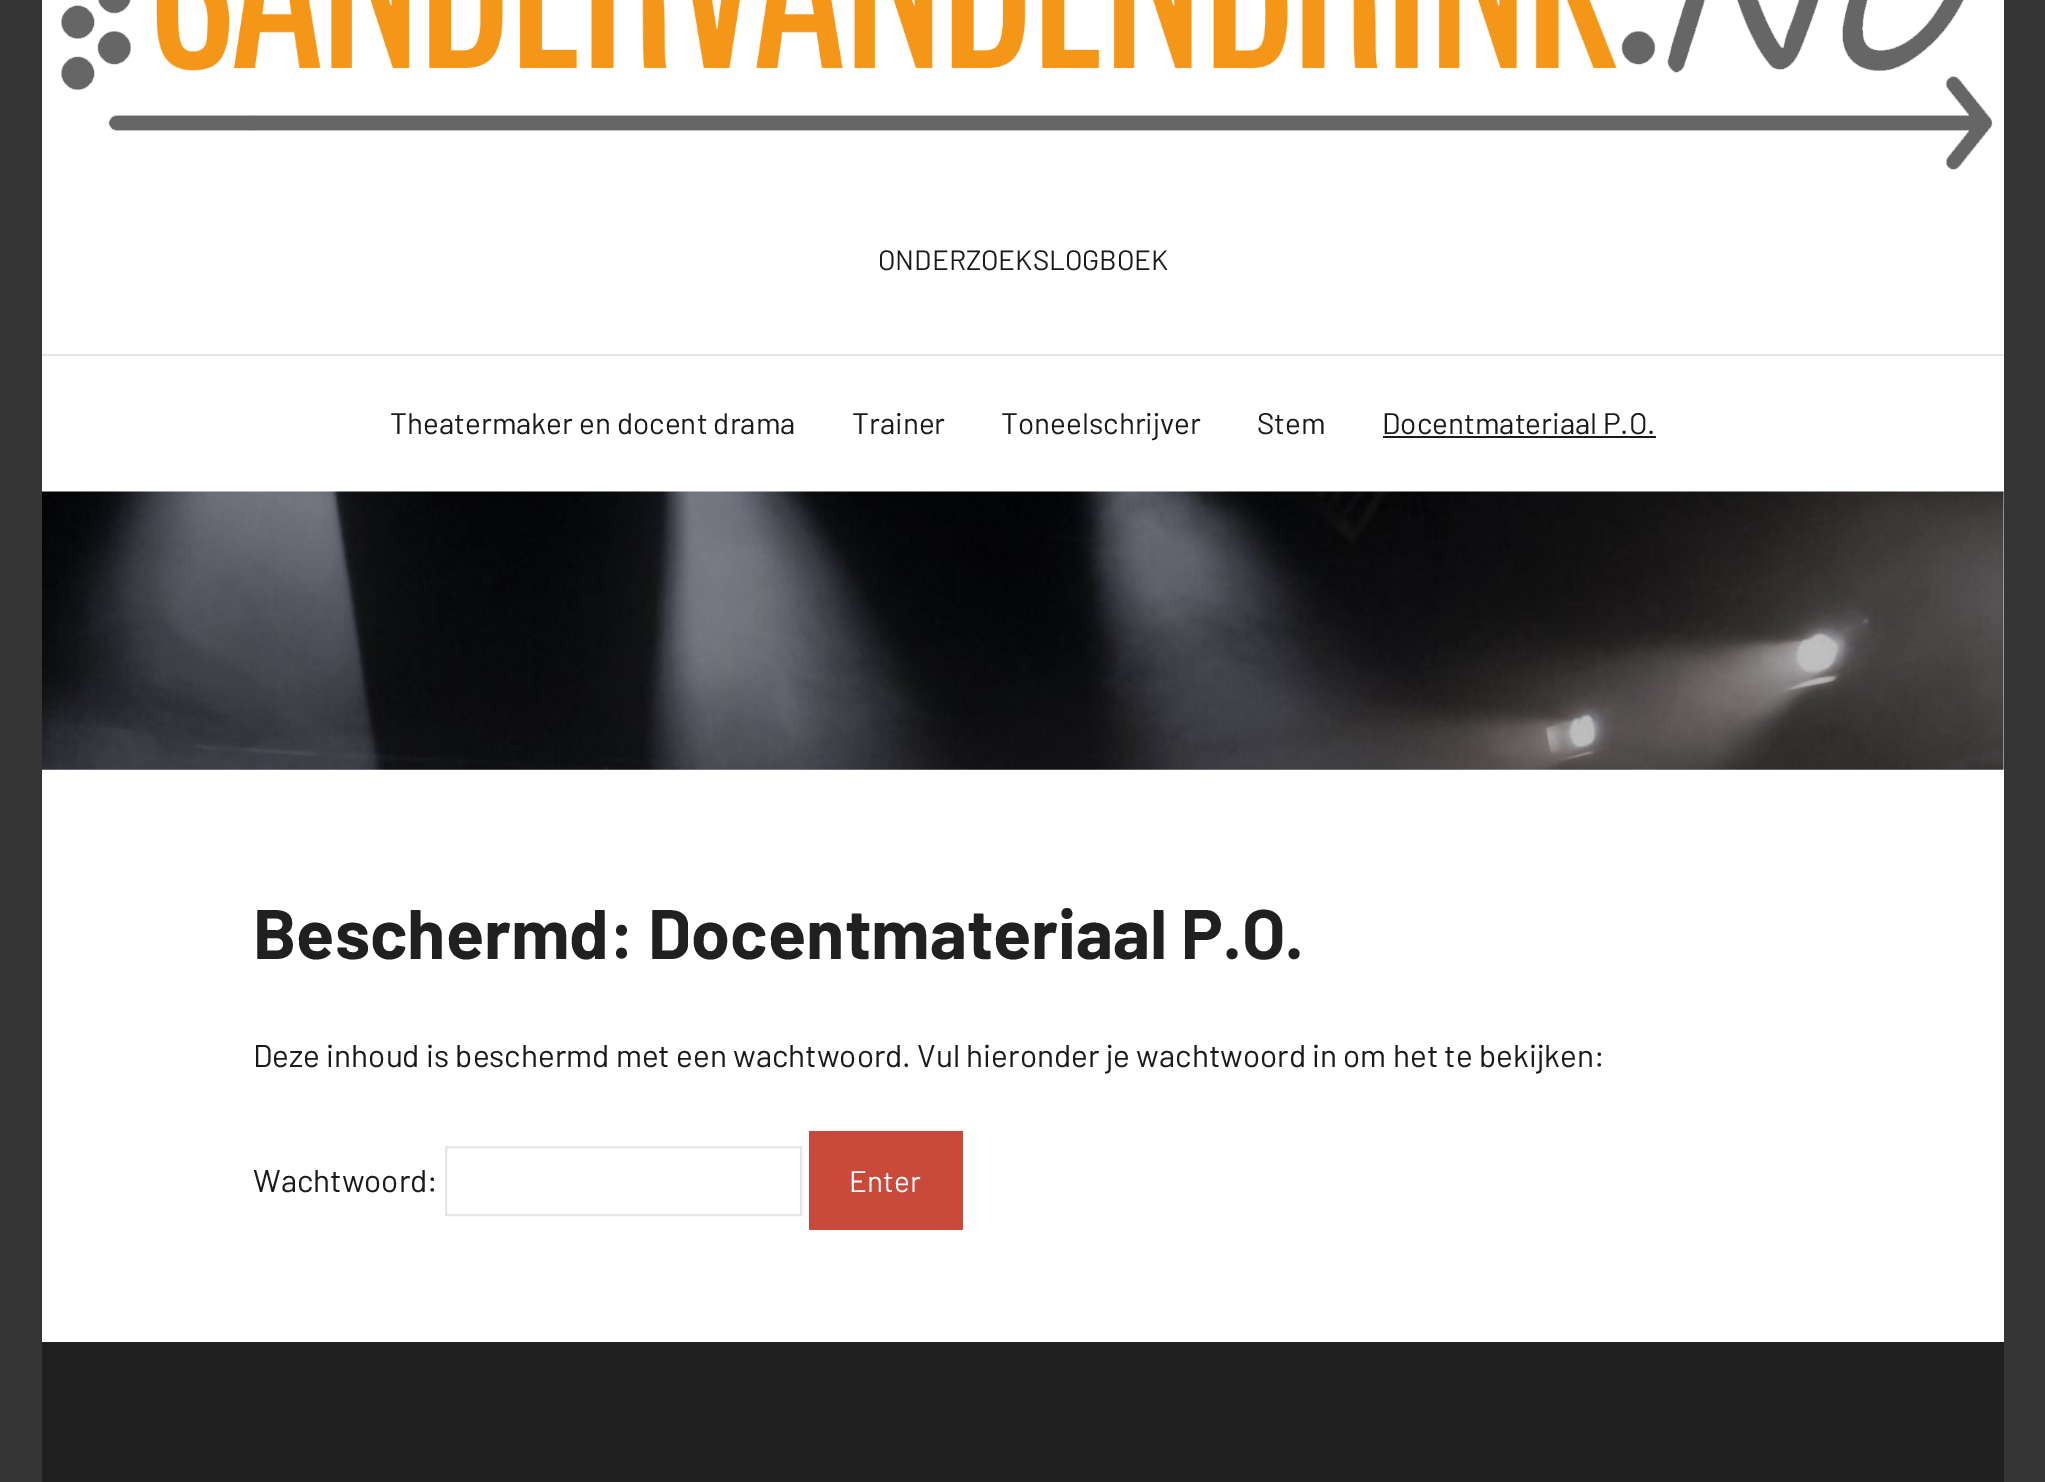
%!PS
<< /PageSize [2045 1482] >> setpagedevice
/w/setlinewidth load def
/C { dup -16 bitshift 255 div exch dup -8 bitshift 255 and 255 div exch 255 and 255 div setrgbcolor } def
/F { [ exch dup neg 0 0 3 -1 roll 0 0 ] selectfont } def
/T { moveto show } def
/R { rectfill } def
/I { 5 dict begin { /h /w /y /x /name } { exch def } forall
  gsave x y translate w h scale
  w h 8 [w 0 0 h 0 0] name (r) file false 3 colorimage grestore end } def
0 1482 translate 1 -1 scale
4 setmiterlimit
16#353535 C
0 0 2045 1482 R
16#FFFFFF C
42 0 1962 1342 R
16#E6E6E6 C
2003 492 1 2 R
(1.rgb) 61 0 1932 170 I
/Barlow-Regular 28 F
16#1A1A1A C
(ONDERZOEKSLOGBOEK) 878 270 T
16#E6E6E6 C
42 354 1962 2 R
/Barlow-Regular 29.75 F
16#1A1A1A C
(Theatermaker en docent drama) 390 434 T
(Trainer) 852 434 T
(Toneelschrijver) 1001 434 T
(Stem) 1257 434 T
(Docentmateriaal P.O.) 1382 434 T
1383 436 273 2 R
(2.rgb) 42 491 1962 279 I
/Barlow-Bold 70 F
16#202020 C
(Beschermd: Docentmateriaal P.O.) 253 959 T
/Barlow-Regular 31.5 F
16#1A1A1A C
(Deze inhoud is beschermd met een wachtwoord. Vul hieronder je wachtwoord in om het te bekijken:) 253 1067 T
(Wachtwoord:) 253 1192 T
16#E6E6E6 C
2 w
446 1147 355 68 rectstroke
16#C9493B C
809 1131 154 99 R
/Barlow-Regular 29.75 F
16#FFFFFF C
(Enter) 849 1192 T
16#202020 C
42 1342 1962 140 R
showpage
